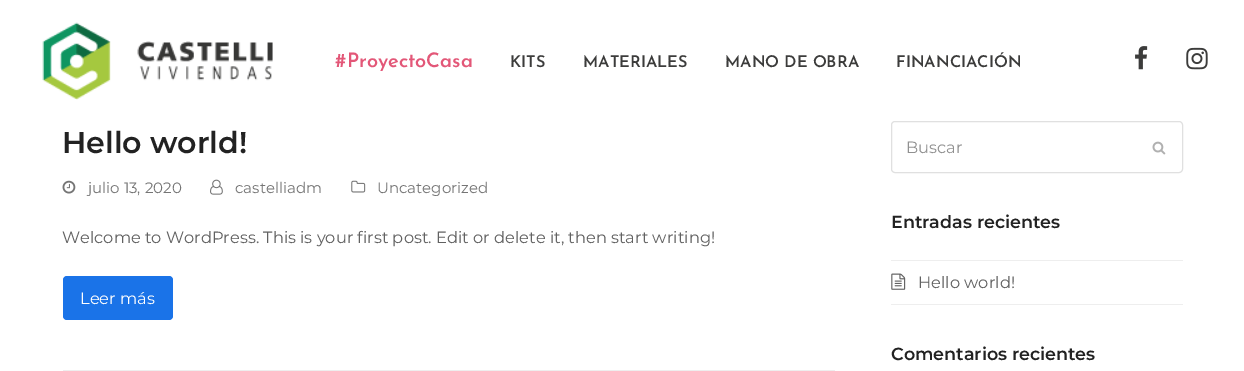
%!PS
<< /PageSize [1244 371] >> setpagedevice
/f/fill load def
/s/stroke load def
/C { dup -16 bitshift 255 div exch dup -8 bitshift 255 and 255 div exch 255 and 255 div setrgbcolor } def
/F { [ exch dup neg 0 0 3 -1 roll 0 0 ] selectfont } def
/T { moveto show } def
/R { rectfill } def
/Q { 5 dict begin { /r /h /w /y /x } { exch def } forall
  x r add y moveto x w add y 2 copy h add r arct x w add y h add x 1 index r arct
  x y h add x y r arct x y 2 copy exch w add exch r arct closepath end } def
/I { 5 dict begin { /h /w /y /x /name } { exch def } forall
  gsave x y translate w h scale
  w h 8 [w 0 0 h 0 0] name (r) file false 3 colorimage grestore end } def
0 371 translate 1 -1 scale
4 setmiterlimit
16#FFFFFF C
0 0 1244 371 R
(1.rgb) 42 22 231 78 I
/JosefinSans-SemiBold 20 F
16#E35778 C
(#ProyectoCasa) 335 67 T
/JosefinSans-SemiBold 16.25 F
16#3C3C3B C
(KITS) 510 67 T
(MATERIALES) 583 67 T
(MANO DE OBRA) 725 67 T
(FINANCIACIÓN) 896 67 T
(2.rgb) 1135 46 13 24 I
(3.rgb) 1186 47 22 23 I
/Montserrat-SemiBold 30 F
16#222222 C
(Hello world!) 62 153 T
(4.rgb) 62 180 14 14 I
/Montserrat-Regular 15 F
16#757575 C
(julio 13, 2020) 88 193 T
(5.rgb) 210 179 13 16 I
(castelliadm) 235 193 T
(6.rgb) 351 180 15 13 I
(Uncategorized) 377 193 T
/Montserrat-Regular 16.25 F
16#616161 C
(Welcome to WordPress. This is your first post. Edit or delete it, then start writing!) 62 243 T
16#1A73E8 C
63 276 110 44 4 Q f
16#FFFFFF C
(Leer más) 80 304 T
16#EEEEEE C
63 370 772 1 R
16#E0E0E0 C
891.5 121.5 291 51 3.5 Q s
16#909090 C
(Buscar) 906 153 T
(7.rgb) 1152 141 14 14 I
/Montserrat-SemiBold 17.5 F
16#222222 C
(Entradas recientes) 891 228 T
16#EEEEEE C
891 260 292 1 R
891 304 292 1 R
(8.rgb) 891 273 15 17 I
/Montserrat-Regular 16.25 F
16#616161 C
(Hello world!) 918 288 T
/Montserrat-SemiBold 17.5 F
16#222222 C
(Comentarios recientes) 891 360 T
showpage
